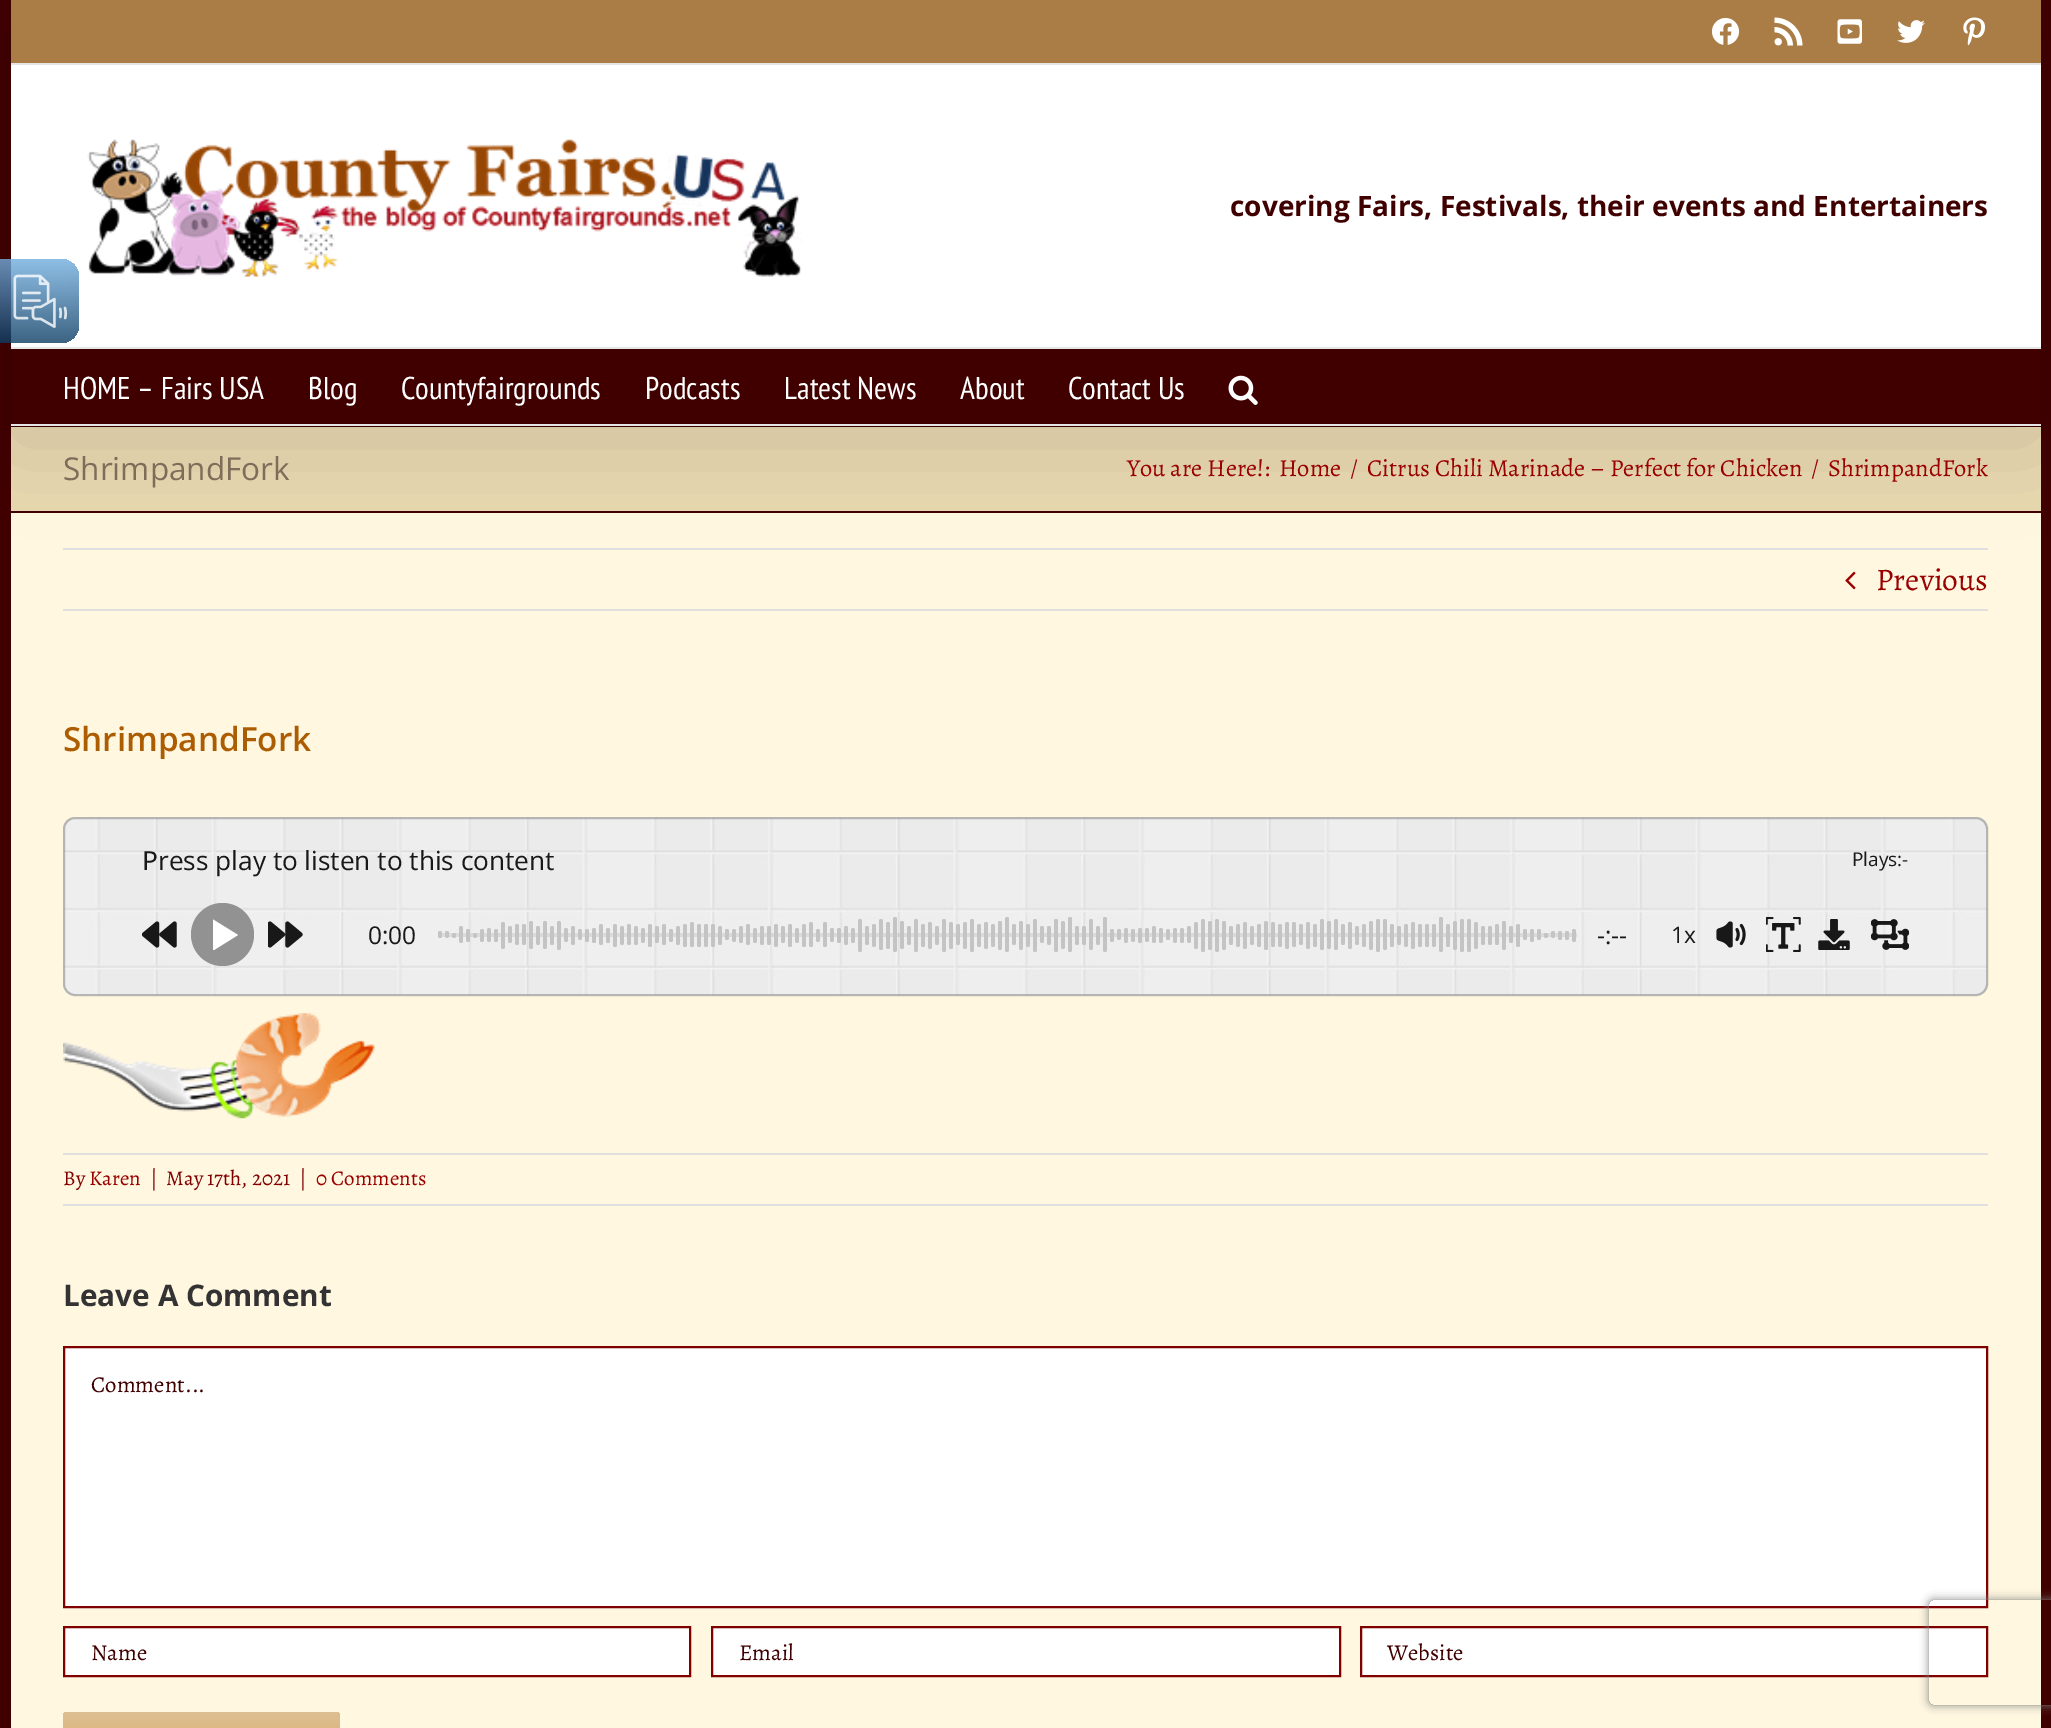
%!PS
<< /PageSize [2051 1728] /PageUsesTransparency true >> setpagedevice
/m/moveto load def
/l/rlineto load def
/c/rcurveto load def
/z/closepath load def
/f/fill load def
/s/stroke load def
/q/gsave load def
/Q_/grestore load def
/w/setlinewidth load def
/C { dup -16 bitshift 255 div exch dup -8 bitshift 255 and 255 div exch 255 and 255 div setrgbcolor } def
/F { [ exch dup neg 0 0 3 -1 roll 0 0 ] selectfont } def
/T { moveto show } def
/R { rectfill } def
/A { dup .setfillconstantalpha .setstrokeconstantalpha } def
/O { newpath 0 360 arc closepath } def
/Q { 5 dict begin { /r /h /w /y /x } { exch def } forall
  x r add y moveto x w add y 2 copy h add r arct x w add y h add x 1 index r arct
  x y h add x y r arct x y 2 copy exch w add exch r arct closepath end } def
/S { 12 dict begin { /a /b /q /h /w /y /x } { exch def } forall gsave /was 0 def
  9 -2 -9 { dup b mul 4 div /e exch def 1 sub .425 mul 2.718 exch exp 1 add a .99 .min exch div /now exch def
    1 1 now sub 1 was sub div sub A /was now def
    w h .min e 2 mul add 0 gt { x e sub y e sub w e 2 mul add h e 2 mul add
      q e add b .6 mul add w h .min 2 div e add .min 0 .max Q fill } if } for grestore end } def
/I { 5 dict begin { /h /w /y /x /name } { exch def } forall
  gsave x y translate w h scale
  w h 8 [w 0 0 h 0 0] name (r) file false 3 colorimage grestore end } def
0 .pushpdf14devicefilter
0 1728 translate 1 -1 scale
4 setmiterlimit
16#400000 C
0 0 2051 1728 R
16#E8D8B0 C
11 427 2030 84 R
16#FFF7E0 C
11 513 2030 1215 R
16#E0DEDE C
63 548 1925 2 R
(9.rgb) 1845 571 11 19 I
16#000000 C
14 21 2023 418 0 44 .14 S
16#FFFFFF C
11 65 2030 282 R
0.8 A
q 0 259 m 61 0 l 10 0 18 8 18 18 c 0 48 l 0 10 -8 18 -18 18 c -61 0 l z clip newpath
<< /ShadingType 2 /ColorSpace /DeviceRGB /Coords [39 259 39 343] /Extend [true true] /Function << /FunctionType 2 /Domain [0 1] /C0 [.451 .686 .878] /C1 [.043 .235 .388] /N 1 >> >> shfill Q_
1 A
(1.rgb) 13 274 54 54 I
16#AA7D46 C
11 0 2030 63 R
16#E5E5E5 C
11 63 2030 2 R
(2.rgb) 1711 17 29 28 I
(3.rgb) 1774 17 29 29 I
(4.rgb) 1837 19 25 25 I
(5.rgb) 1897 20 28 23 I
(6.rgb) 1963 17 23 29 I
11 347 2030 2 R
(7.rgb) 87 139 716 138 I
/OpenSans-Bold 28 F
16#400000 C
(covering Fairs, Festivals, their events and Entertainers) 1230 216 T
11 349 2030 75 R
16#E5E5E5 C
11 424 2030 2 R
/PTSansNarrow-Regular 31.5 F
16#FFFFFF C
(HOME – Fairs USA) 63 399 T
(Blog) 308 399 T
(Countyfairgrounds) 401 399 T
(Podcasts) 645 399 T
(Latest News) 784 399 T
(About) 960 399 T
(Contact Us) 1068 399 T
(8.rgb) 1228 375 30 30 I
/OpenSans-Regular 31.5 F
16#7F6D5A C
(ShrimpandFork) 63 480 T
/Alegreya-Regular 24.5 F
16#990000 C
(You are Here!:) 1127 476 T
(Home) 1279 476 T
(/) 1350 476 T
(Citrus Chili Marinade – Perfect for Chicken) 1367 476 T
(/) 1811 476 T
(ShrimpandFork) 1828 476 T
16#E0DEDE C
63 609 1925 2 R
/Alegreya-Regular 31.5 F
16#990000 C
(Previous) 1876 590 T
/OpenSans-SemiBold 33.25 F
16#AD5D01 C
(ShrimpandFork) 63 751 T
(10.rgb) 63 817 1925 179 I
0.38 A
16#F2F2F2 C
63 817 1925 179 12 Q f
0.56 A
16#898989 C
2 w
64 818 1923 177 11 Q s
/NotoSans-Regular 26.25 F
1 A
16#181818 C
(P) 142 870 T
/OpenSans-Regular 26.25 F
(ress play to listen to this content) 158 870 T
/OpenSans-Regular 19 F
(Plays:-) 1852 866 T
(11.rgb) 142 921 35 27 I
16#929292 C
222.5 934.5 31.5 O f
16#FFFFFF C
213 919.5 m 25 15.5 l -24 15 l -1 0 l z f
(12.rgb) 268 921 35 27 I
/OpenSans-Regular 24.5 F
16#181818 C
(0:00) 368 944 T
0.29 A
16#ADA9A9 C
438 933 1139 4 R
1 A
16#C4C4C4 C
438 931 4 7 2 Q f
445 931 4 7 2 Q f
452 933 4 5 2 Q f
459 926 4 17 2 Q f
466 929 4 13 2 Q f
473 933 4 5 2 Q f
480 929 4 13 2 Q f
487 928 4 14 2 Q f
494 929 4 13 2 Q f
501 922 4 27 2 Q f
508 926 4 17 2 Q f
515 924 4 21 2 Q f
522 924 4 21 2 Q f
529 921 4 28 2 Q f
536 926 4 19 2 Q f
543 921 4 28 2 Q f
550 926 4 19 2 Q f
557 921 4 29 2 Q f
564 928 4 14 2 Q f
571 926 4 19 2 Q f
578 929 4 11 2 Q f
585 929 4 13 2 Q f
592 928 4 15 2 Q f
599 924 4 21 2 Q f
606 928 4 15 2 Q f
613 924 4 23 2 Q f
620 926 4 19 2 Q f
627 924 4 21 2 Q f
634 926 4 19 2 Q f
641 928 4 15 2 Q f
648 924 4 23 2 Q f
655 926 4 17 2 Q f
662 924 4 21 2 Q f
669 929 4 13 2 Q f
676 926 4 19 2 Q f
683 924 4 23 2 Q f
690 922 4 25 2 Q f
697 924 4 23 2 Q f
704 924 4 23 2 Q f
711 924 4 23 2 Q f
718 926 4 19 2 Q f
725 929 4 11 2 Q f
732 929 4 13 2 Q f
739 926 4 17 2 Q f
746 924 4 21 2 Q f
753 928 4 15 2 Q f
760 926 4 19 2 Q f
767 926 4 19 2 Q f
774 924 4 23 2 Q f
781 926 4 17 2 Q f
788 924 4 23 2 Q f
795 928 4 15 2 Q f
802 924 4 23 2 Q f
809 922 4 25 2 Q f
816 929 4 13 2 Q f
823 922 4 25 2 Q f
830 928 4 14 2 Q f
837 928 4 15 2 Q f
844 926 4 19 2 Q f
851 928 4 15 2 Q f
858 919 4 33 2 Q f
865 926 4 19 2 Q f
872 924 4 23 2 Q f
879 919 4 31 2 Q f
886 922 4 27 2 Q f
893 917 4 35 2 Q f
900 921 4 28 2 Q f
907 926 4 19 2 Q f
914 919 4 33 2 Q f
921 924 4 23 2 Q f
928 922 4 27 2 Q f
935 926 4 19 2 Q f
942 919 4 33 2 Q f
949 922 4 27 2 Q f
956 924 4 21 2 Q f
963 922 4 27 2 Q f
970 919 4 33 2 Q f
977 924 4 23 2 Q f
984 922 4 27 2 Q f
991 924 4 23 2 Q f
998 921 4 29 2 Q f
1005 917 4 35 2 Q f
1012 924 4 21 2 Q f
1019 921 4 29 2 Q f
1026 924 4 23 2 Q f
1033 919 4 33 2 Q f
1040 926 4 17 2 Q f
1047 926 4 19 2 Q f
1054 919 4 33 2 Q f
1061 921 4 28 2 Q f
1068 917 4 35 2 Q f
1075 926 4 19 2 Q f
1082 926 4 19 2 Q f
1089 919 4 31 2 Q f
1096 926 4 19 2 Q f
1103 917 4 35 2 Q f
1110 929 4 13 2 Q f
1117 929 4 11 2 Q f
1124 928 4 15 2 Q f
1131 929 4 13 2 Q f
1138 928 4 15 2 Q f
1145 928 4 14 2 Q f
1152 926 4 17 2 Q f
1159 928 4 15 2 Q f
1166 929 4 11 2 Q f
1173 928 4 15 2 Q f
1180 928 4 15 2 Q f
1187 926 4 17 2 Q f
1194 922 4 27 2 Q f
1201 919 4 33 2 Q f
1208 921 4 29 2 Q f
1215 919 4 33 2 Q f
1222 921 4 29 2 Q f
1229 926 4 19 2 Q f
1236 924 4 23 2 Q f
1243 922 4 27 2 Q f
1250 926 4 19 2 Q f
1257 924 4 23 2 Q f
1264 921 4 29 2 Q f
1271 922 4 25 2 Q f
1278 924 4 23 2 Q f
1285 922 4 27 2 Q f
1292 922 4 25 2 Q f
1299 924 4 21 2 Q f
1306 922 4 27 2 Q f
1313 924 4 23 2 Q f
1320 919 4 31 2 Q f
1327 921 4 28 2 Q f
1334 919 4 31 2 Q f
1341 924 4 21 2 Q f
1348 922 4 27 2 Q f
1355 926 4 19 2 Q f
1362 924 4 23 2 Q f
1369 921 4 29 2 Q f
1376 919 4 33 2 Q f
1383 919 4 31 2 Q f
1390 924 4 23 2 Q f
1397 926 4 19 2 Q f
1404 924 4 23 2 Q f
1411 922 4 27 2 Q f
1418 924 4 23 2 Q f
1425 924 4 23 2 Q f
1432 924 4 23 2 Q f
1439 917 4 35 2 Q f
1446 924 4 23 2 Q f
1453 921 4 29 2 Q f
1460 919 4 33 2 Q f
1467 919 4 33 2 Q f
1474 922 4 27 2 Q f
1481 926 4 19 2 Q f
1488 926 4 19 2 Q f
1495 924 4 21 2 Q f
1502 921 4 29 2 Q f
1509 926 4 17 2 Q f
1516 924 4 23 2 Q f
1523 929 4 11 2 Q f
1530 929 4 13 2 Q f
1537 929 4 11 2 Q f
1544 933 4 5 2 Q f
1551 931 4 7 2 Q f
1558 931 4 9 2 Q f
1565 931 4 9 2 Q f
1572 929 4 13 2 Q f
16#181818 C
(-:--) 1597 944 T
/OpenSans-Regular 22.75 F
(1x) 1671 943 T
(13.rgb) 1716 921 30 27 I
(14.rgb) 1766 917 35 35 I
(15.rgb) 1818 919 32 31 I
(16.rgb) 1871 919 38 31 I
(17.rgb) 63 1013 312 106 I
16#E0DEDE C
63 1153 1925 2 R
63 1204 1925 2 R
/Alegreya-Regular 21 F
16#800000 C
(By) 63 1185 T
16#990000 C
(Karen) 89 1185 T
16#800000 C
(|) 150 1185 T
(May 17th, 2021) 166 1185 T
(|) 299 1185 T
16#990000 C
(0 Comments) 316 1185 T
/OpenSans-Bold 29.75 F
16#333333 C
(Leave A Comment) 63 1306 T
16#FFFFFF C
64 1347 m 1923 0 l 0 260 l -1923 0 l z q f Q_
16#800000 C
s
/Alegreya-Regular 22.75 F
16#400000 C
(Comment...) 91 1392 T
16#FFFFFF C
64 1627 m 626 0 l 0 49 l -626 0 l z q f Q_
16#800000 C
s
16#400000 C
(Name) 91 1660 T
16#FFFFFF C
712 1627 m 628 0 l 0 49 l -628 0 l z q f Q_
16#800000 C
s
16#400000 C
(Email) 739 1660 T
16#FFFFFF C
1361 1627 m 626 0 l 0 49 l -626 0 l z q f Q_
16#800000 C
s
16#400000 C
(Website) 1387 1660 T
q 63 1712 277 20 4 Q clip newpath
<< /ShadingType 2 /ColorSpace /DeviceRGB /Coords [201 1712 201 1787] /Extend [true true] /Function << /FunctionType 2 /Domain [0 1] /C0 [.867 .749 .573] /C1 [.839 .62 .353] /N 1 >> >> shfill Q_
q
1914 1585 m 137 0 l 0 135 l -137 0 l z 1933 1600 m 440 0 l 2 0 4 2 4 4 c 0 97 l 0 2 -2 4 -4 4 c -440 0 l -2 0 -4 -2 -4 -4 c 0 -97 l 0 -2 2 -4 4 -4 c z eoclip newpath
16#808080 C
1929 1600 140 105 4 4.5 1 S
Q_
.poppdf14devicefilter showpage
